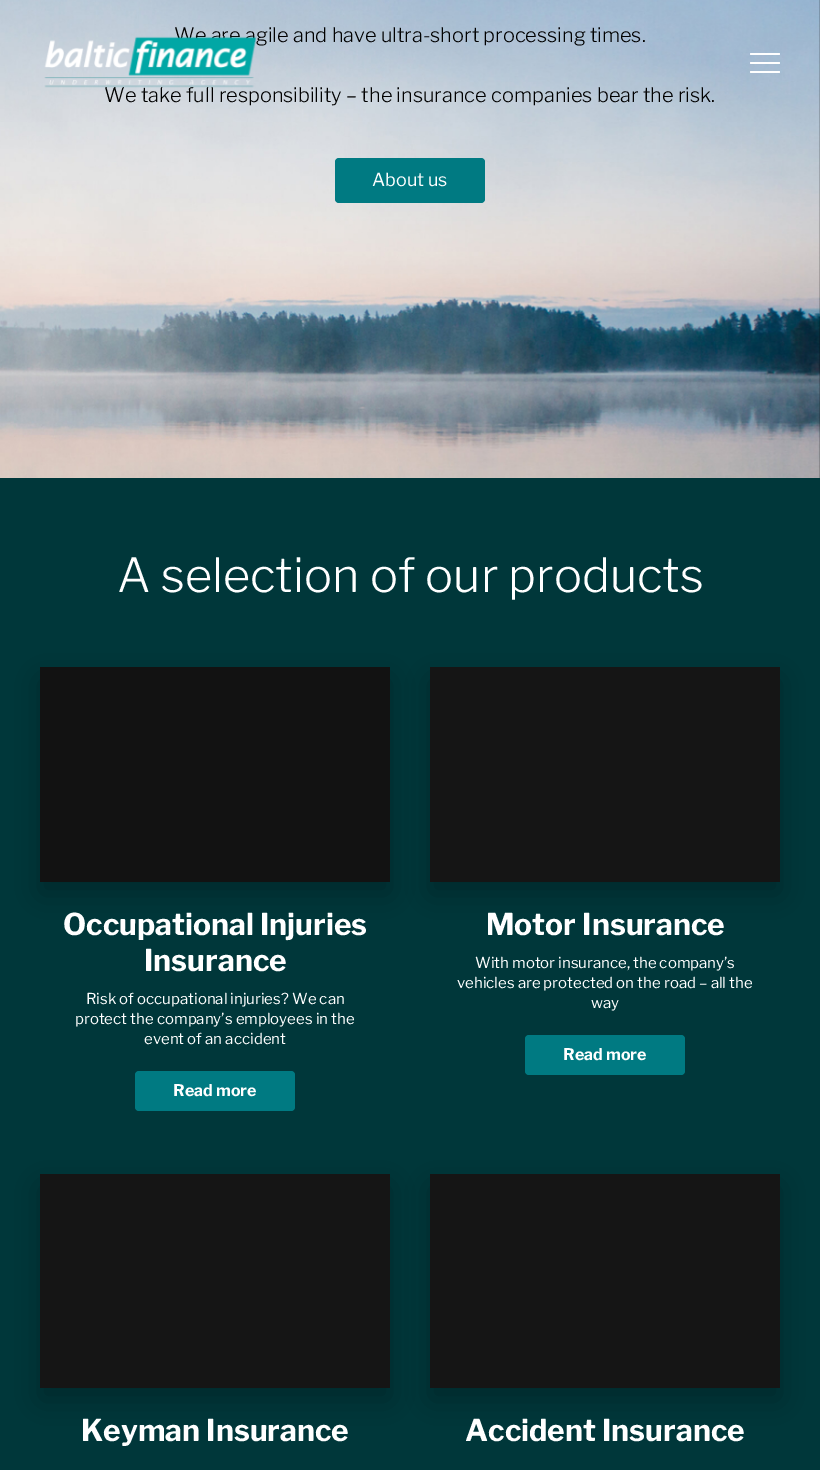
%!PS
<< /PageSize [820 1470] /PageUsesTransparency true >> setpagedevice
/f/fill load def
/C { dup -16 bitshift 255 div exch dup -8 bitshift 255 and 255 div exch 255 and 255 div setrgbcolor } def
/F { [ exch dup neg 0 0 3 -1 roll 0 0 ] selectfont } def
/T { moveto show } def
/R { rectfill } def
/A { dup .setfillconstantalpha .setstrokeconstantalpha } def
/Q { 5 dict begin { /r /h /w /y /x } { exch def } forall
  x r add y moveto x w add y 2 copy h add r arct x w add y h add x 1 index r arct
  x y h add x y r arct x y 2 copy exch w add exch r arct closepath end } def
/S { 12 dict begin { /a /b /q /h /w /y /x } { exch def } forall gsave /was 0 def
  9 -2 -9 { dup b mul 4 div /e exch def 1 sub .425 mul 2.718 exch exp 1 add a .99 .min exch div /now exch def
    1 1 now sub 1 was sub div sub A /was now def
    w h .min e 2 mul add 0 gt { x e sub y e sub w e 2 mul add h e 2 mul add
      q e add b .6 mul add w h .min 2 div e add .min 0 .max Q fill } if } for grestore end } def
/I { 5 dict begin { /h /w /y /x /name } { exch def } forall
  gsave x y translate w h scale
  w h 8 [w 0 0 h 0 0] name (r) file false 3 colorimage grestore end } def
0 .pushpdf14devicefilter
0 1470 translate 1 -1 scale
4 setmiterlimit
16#FFFFFF C
0 0 820 1470 R
(1.rgb) 0 0 820 478 I
/LibreFranklin-Light 20 F
16#000000 C
(We are agile and have ultra-short processing times.) 174 42 T
(We take full responsibility – the insurance companies bear the risk.) 104 102 T
16#007A82 C
335 158 150 45 4 Q f
/LibreFranklin-Regular 18 F
16#FFFFFF C
(About us) 372 186 T
16#00373A C
0 478 820 992 R
/LibreFranklin-Light 47 F
16#FFFFFF C
(A selection of our products) 117 592 T
16#000000 C
40 679 350 215 0 15 .25 S
16#121212 C
40 667 350 215 R
/LibreFranklin-Bold 30 F
16#FFFFFF C
(Occupational Injuries) 63 935 T
(Insurance) 144 971 T
/LibreFranklin-Regular 15 F
(Risk of occupational injuries? We can) 86 1004 T
(protect the company’s employees in the) 75 1024 T
(event of an accident) 144 1044 T
16#007A82 C
135 1071 160 40 4 Q f
/LibreFranklin-Bold 16 F
16#FFFFFF C
(Read more) 173 1096 T
16#000000 C
430 679 350 215 0 15 .25 S
16#151515 C
430 667 350 215 R
/LibreFranklin-Bold 30 F
16#FFFFFF C
(Motor Insurance) 486 935 T
/LibreFranklin-Regular 15 F
(With motor insurance, the company’s) 475 968 T
(vehicles are protected on the road – all the) 457 988 T
(way) 591 1008 T
16#007A82 C
525 1035 160 40 4 Q f
/LibreFranklin-Bold 16 F
16#FFFFFF C
(Read more) 563 1060 T
16#000000 C
40 1186 350 214 0 15 .25 S
16#151515 C
40 1174 350 214 R
/LibreFranklin-Bold 30 F
16#FFFFFF C
(Keyman Insurance) 81 1441 T
16#000000 C
430 1186 350 214 0 15 .25 S
16#151515 C
430 1174 350 214 R
16#FFFFFF C
(Accident Insurance) 465 1441 T
(2.rgb) 44 36 213 52 I
750 53 30 2 1 Q f
750 62 30 2 1 Q f
750 71 30 2 1 Q f
.poppdf14devicefilter showpage
